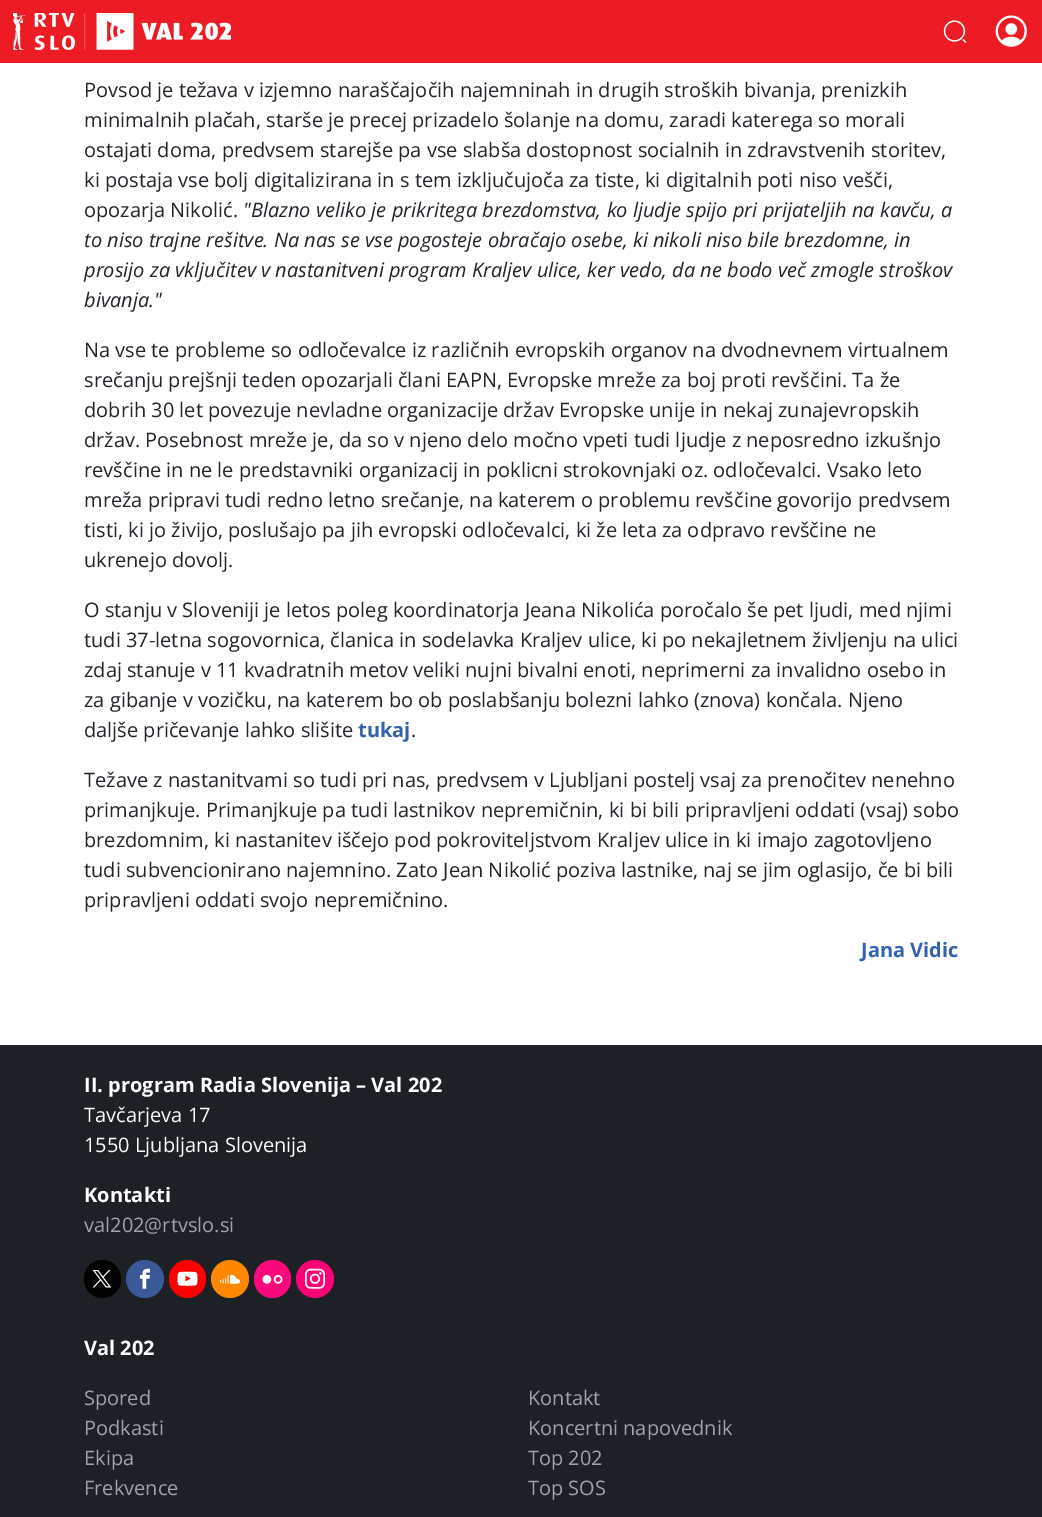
%!PS
<< /PageSize [1042 1517] >> setpagedevice
/f/fill load def
/C { dup -16 bitshift 255 div exch dup -8 bitshift 255 and 255 div exch 255 and 255 div setrgbcolor } def
/F { [ exch dup neg 0 0 3 -1 roll 0 0 ] selectfont } def
/T { moveto show } def
/R { rectfill } def
/O { newpath 0 360 arc closepath } def
/Q { 5 dict begin { /r /h /w /y /x } { exch def } forall
  x r add y moveto x w add y 2 copy h add r arct x w add y h add x 1 index r arct
  x y h add x y r arct x y 2 copy exch w add exch r arct closepath end } def
/I { 5 dict begin { /h /w /y /x /name } { exch def } forall
  gsave x y translate w h scale
  w h 8 [w 0 0 h 0 0] name (r) file false 3 colorimage grestore end } def
0 1517 translate 1 -1 scale
4 setmiterlimit
16#FFFFFF C
0 0 1042 1517 R
16#ED1C24 C
0 0 1042 63 R
(1.rgb) 13 13 218 37 I
(2.rgb) 943 20 24 23 I
(3.rgb) 995 15 32 32 I
/OpenSans-Regular 20 F
16#212529 C
(Povsod je težava v izjemno naraščajočih najemninah in drugih stroških bivanja, prenizkih) 84 97 T
(minimalnih plačah, starše je precej prizadelo šolanje na domu, zaradi katerega so morali) 84 127 T
(ostajati doma, predvsem starejše pa vse slabša dostopnost socialnih in zdravstvenih storitev,) 84 157 T
(ki postaja vse bolj digitalizirana in s tem izključujoča za tiste, ki digitalnih poti niso vešči,) 84 187 T
(opozarja Nikolić.) 84 217 T
/OpenSans-Italic 20 F
("Blazno veliko je prikritega brezdomstva, ko ljudje spijo pri prijateljih na kavču, a) 243 217 T
(to niso trajne rešitve. Na nas se vse pogosteje obračajo osebe, ki nikoli niso bile brezdomne, in) 84 247 T
(prosijo za vključitev v nastanitveni program Kraljev ulice, ker vedo, da ne bodo več zmogle stroškov) 84 277 T
(bivanja.") 84 307 T
/OpenSans-Regular 20 F
(Na vse te probleme so odločevalce iz različnih evropskih organov na dvodnevnem virtualnem) 84 357 T
(srečanju prejšnji teden opozarjali člani EAPN, Evropske mreže za boj proti revščini. Ta že) 84 387 T
(dobrih 30 let povezuje nevladne organizacije držav Evropske unije in nekaj zunajevropskih) 84 417 T
(držav. Posebnost mreže je, da so v njeno delo močno vpeti tudi ljudje z neposredno izkušnjo) 84 447 T
(revščine in ne le predstavniki organizacij in poklicni strokovnjaki oz. odločevalci. Vsako leto) 84 477 T
(mreža pripravi tudi redno letno srečanje, na katerem o problemu revščine govorijo predvsem) 84 507 T
(tisti, ki jo živijo, poslušajo pa jih evropski odločevalci, ki že leta za odpravo revščine ne) 84 537 T
(ukrenejo dovolj.) 84 567 T
(O stanju v Sloveniji je letos poleg koordinatorja Jeana Nikolića poročalo še pet ljudi, med njimi) 84 617 T
(tudi 37-letna sogovornica, članica in sodelavka Kraljev ulice, ki po nekajletnem življenju na ulici) 84 647 T
(zdaj stanuje v 11 kvadratnih metov veliki nujni bivalni enoti, neprimerni za invalidno osebo in) 84 677 T
(za gibanje v vozičku, na katerem bo ob poslabšanju bolezni lahko \(znova\) končala. Njeno) 84 707 T
(daljše pričevanje lahko slišite) 84 737 T
/OpenSans-Bold 20 F
16#3363AD C
(tukaj) 358 737 T
/OpenSans-Regular 20 F
16#212529 C
(.) 411 737 T
(Težave z nastanitvami so tudi pri nas, predvsem v Ljubljani postelj vsaj za prenočitev nenehno) 84 787 T
(primanjkuje. Primanjkuje pa tudi lastnikov nepremičnin, ki bi bili pripravljeni oddati \(vsaj\) sobo) 84 817 T
(brezdomnim, ki nastanitev iščejo pod pokroviteljstvom Kraljev ulice in ki imajo zagotovljeno) 84 847 T
(tudi subvencionirano najemnino. Zato Jean Nikolić poziva lastnike, naj se jim oglasijo, če bi bili) 84 877 T
(pripravljeni oddati svojo nepremičnino.) 84 907 T
/OpenSans-Bold 20 F
16#3363AD C
(Jana Vidic) 861 957 T
16#1D2125 C
0 1045 1042 472 R
16#FFFFFF C
(II. program Radia Slovenija – Val 202) 84 1092 T
/OpenSans-Regular 20 F
(Tavčarjeva 17) 84 1122 T
(1550 Ljubljana Slovenija) 84 1152 T
/OpenSans-Bold 20 F
(Kontakti) 84 1202 T
/OpenSans-Regular 20 F
16#A0A4A9 C
(val202@rtvslo.si) 84 1232 T
16#000000 C
84 1260 37 38 18.5 Q f
(4.rgb) 92 1270 20 18 I
16#3B5998 C
145 1279 19 O f
(5.rgb) 140 1268 10 21 I
16#FF0000 C
169 1260 37 38 18.5 Q f
(6.rgb) 177 1271 21 15 I
16#FF8800 C
230 1279 19 O f
(7.rgb) 220 1275 20 9 I
16#FF087E C
254 1260 37 38 18.5 Q f
(8.rgb) 262 1275 21 9 I
16#FF0076 C
315 1279 19 O f
(9.rgb) 305 1268 20 21 I
/OpenSans-Bold 20 F
16#FFFFFF C
(Val 202) 84 1355 T
/OpenSans-Regular 20 F
16#A0A4A9 C
(Spored) 84 1405 T
(Kontakt) 528 1405 T
(Podkasti) 84 1435 T
(Koncertni napovednik) 528 1435 T
(Ekipa) 84 1465 T
(Top 202) 528 1465 T
(Frekvence) 84 1495 T
(Top SOS) 528 1495 T
showpage
